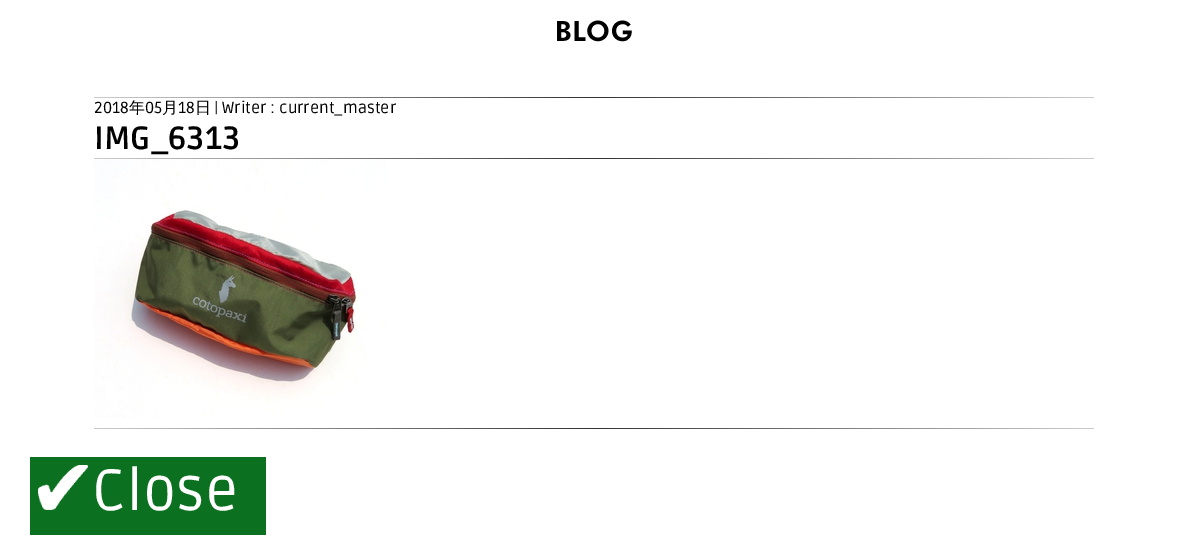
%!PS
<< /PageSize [1188 545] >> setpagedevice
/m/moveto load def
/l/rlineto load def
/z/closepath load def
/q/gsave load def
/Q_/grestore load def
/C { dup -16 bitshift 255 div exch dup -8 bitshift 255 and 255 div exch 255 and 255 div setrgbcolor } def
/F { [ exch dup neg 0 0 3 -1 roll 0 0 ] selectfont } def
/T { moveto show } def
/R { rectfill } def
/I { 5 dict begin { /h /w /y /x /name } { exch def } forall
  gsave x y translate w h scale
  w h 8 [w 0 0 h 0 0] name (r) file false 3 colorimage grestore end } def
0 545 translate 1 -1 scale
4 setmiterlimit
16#FFFFFF C
0 0 1188 545 R
(1.rgb) 557 20 75 22 I
q 94 97 m 1000 0 l 0 1 l -1000 0 l z clip newpath
<< /ShadingType 2 /ColorSpace /DeviceRGB /Coords [94 98 1094 97] /Extend [true true] /Function << /FunctionType 3 /Domain [0 1] /Functions [<< /FunctionType 2 /Domain [0 1] /C0 [.8 .8 .8] /C1 [.2 .2 .2] /N 1 >> << /FunctionType 2 /Domain [0 1] /C0 [.2 .2 .2] /C1 [.8 .8 .8] /N 1 >>] /Bounds [.5] /Encode [0 1 0 1] >> >> shfill Q_
/Ruda-Regular 16 F
16#000000 C
(2018) 94 113 T
/WenQuanYiZenHei-Medium 16 F
(年) 129 113 T
/Ruda-Regular 16 F
(05) 145 113 T
/WenQuanYiZenHei-Medium 16 F
(月) 162 113 T
/Ruda-Regular 16 F
(18) 178 113 T
/WenQuanYiZenHei-Medium 16 F
(日) 195 113 T
/Ruda-Regular 16 F
(| Writer : current_master) 214 113 T
/Ruda-Bold 32 F
(IMG_6313) 94 149 T
q 94 158 m 1000 0 l 0 1 l -1000 0 l z clip newpath
<< /ShadingType 2 /ColorSpace /DeviceRGB /Coords [94 159 1094 158] /Extend [true true] /Function << /FunctionType 3 /Domain [0 1] /Functions [<< /FunctionType 2 /Domain [0 1] /C0 [.8 .8 .8] /C1 [.2 .2 .2] /N 1 >> << /FunctionType 2 /Domain [0 1] /C0 [.2 .2 .2] /C1 [.8 .8 .8] /N 1 >>] /Bounds [.5] /Encode [0 1 0 1] >> >> shfill Q_
(2.rgb) 94 159 292 259 I
q 94 428 m 1000 0 l 0 1 l -1000 0 l z clip newpath
<< /ShadingType 2 /ColorSpace /DeviceRGB /Coords [94 429 1094 428] /Extend [true true] /Function << /FunctionType 3 /Domain [0 1] /Functions [<< /FunctionType 2 /Domain [0 1] /C0 [.8 .8 .8] /C1 [.2 .2 .2] /N 1 >> << /FunctionType 2 /Domain [0 1] /C0 [.2 .2 .2] /C1 [.8 .8 .8] /N 1 >>] /Bounds [.5] /Encode [0 1 0 1] >> >> shfill Q_
16#0B7020 C
30 457 236 78 R
(3.rgb) 38 465 50 45 I
/Ruda-Regular 58 F
16#FFFFFF C
(Close) 92 510 T
showpage
